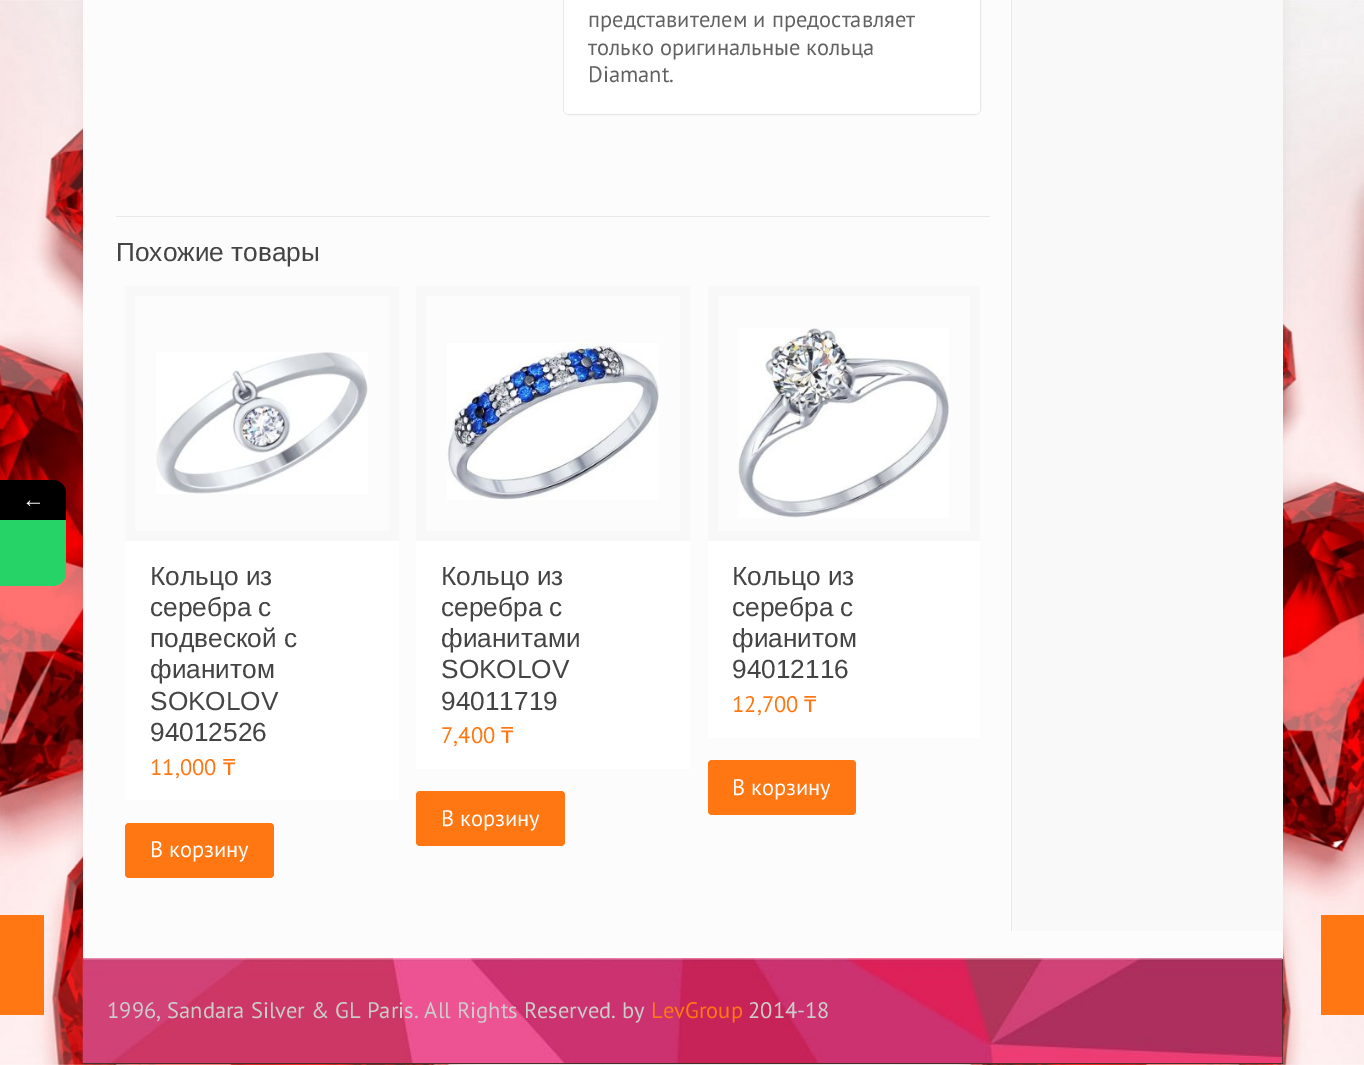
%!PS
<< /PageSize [1364 1065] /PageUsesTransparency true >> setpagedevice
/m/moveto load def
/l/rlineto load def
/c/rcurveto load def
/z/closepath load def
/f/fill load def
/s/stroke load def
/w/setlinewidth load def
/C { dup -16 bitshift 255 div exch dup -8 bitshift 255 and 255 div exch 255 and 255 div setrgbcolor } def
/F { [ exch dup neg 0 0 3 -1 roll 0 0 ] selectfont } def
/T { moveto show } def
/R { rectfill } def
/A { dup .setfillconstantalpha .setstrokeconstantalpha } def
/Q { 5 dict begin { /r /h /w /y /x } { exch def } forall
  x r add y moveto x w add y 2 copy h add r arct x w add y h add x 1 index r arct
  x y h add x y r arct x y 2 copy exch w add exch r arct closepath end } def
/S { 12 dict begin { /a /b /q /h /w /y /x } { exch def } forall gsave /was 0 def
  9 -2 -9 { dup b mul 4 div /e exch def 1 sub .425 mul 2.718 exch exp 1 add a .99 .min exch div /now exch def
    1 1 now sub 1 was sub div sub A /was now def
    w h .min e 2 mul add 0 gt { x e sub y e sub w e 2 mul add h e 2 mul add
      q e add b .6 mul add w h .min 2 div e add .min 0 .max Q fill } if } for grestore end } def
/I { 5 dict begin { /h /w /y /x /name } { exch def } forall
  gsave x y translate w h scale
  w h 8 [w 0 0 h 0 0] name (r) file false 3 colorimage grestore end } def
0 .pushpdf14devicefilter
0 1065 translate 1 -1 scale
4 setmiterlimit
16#FFFFFF C
0 0 1364 1065 R
(1.rgb) 0 0 1364 1065 I
16#000000 C
0 484 66 40 13 4 .16 S
83 -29 1200 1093 0 9.5 .06 S
0 480 m 53 0 l 7 0 13 6 13 13 c 0 27 l -66 0 l z f
/LiberationSerif-Regular 22.5 F
16#FFFFFF C
(←) 22 507 T
16#26D367 C
0 520 m 66 0 l 0 53 l 0 7 -6 13 -13 13 c -53 0 l z f
16#FCFCFC C
83 0 1200 959 R
16#E8E8E8 C
563.5 -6.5 417 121 5.5 Q s
16#FFFFFF C
564 -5 m 416 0 l 0 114 l 0 3 -2 5 -5 5 c -406 0 l -3 0 -5 -2 -5 -5 c z f
/PTSans-Regular 22.5 F
16#626262 C
(представителем и предоставляет) 588 27 T
(только оригинальные кольца) 588 55 T
(Diamant.) 588 82 T
16#E8E8E8 C
116 216 874 1 R
/LiberationSans-Regular 26.25 F
16#444444 C
(Похожие товары) 116 261 T
16#F8F8F8 C
10 w
130 291 264 245 rectstroke
(2.rgb) 156 352 212 142 I
16#FFFFFF C
125 541 274 259 R
16#444444 C
(Кольцо из) 150 585 T
(серебра с) 150 616 T
(подвеской с) 150 647 T
(фианитом) 150 678 T
(SOKOLOV) 150 710 T
(94012526) 150 741 T
/PTSans-Regular 22.5 F
16#FF7713 C
(11,000) 150 775 T
/NotoSans-Regular 22.5 F
(₸) 223 775 T
125 823 149 55 4 Q f
/PTSans-Regular 22.5 F
16#FFFFFF C
(В корзину) 150 857 T
16#F8F8F8 C
421 291 264 245 rectstroke
(3.rgb) 447 343 212 157 I
16#FFFFFF C
416 541 274 228 R
/LiberationSans-Regular 26.25 F
16#444444 C
(Кольцо из) 441 585 T
(серебра с) 441 616 T
(фианитами) 441 647 T
(SOKOLOV) 441 678 T
(94011719) 441 710 T
/PTSans-Regular 22.5 F
16#FF7713 C
(7,400) 441 743 T
/NotoSans-Regular 22.5 F
(₸) 501 743 T
416 791 149 55 4 Q f
/PTSans-Regular 22.5 F
16#FFFFFF C
(В корзину) 441 826 T
16#F8F8F8 C
713 291 262 245 rectstroke
(4.rgb) 738 328 211 190 I
16#FFFFFF C
708 541 272 197 R
/LiberationSans-Regular 26.25 F
16#444444 C
(Кольцо из) 732 585 T
(серебра с) 732 616 T
(фианитом) 732 647 T
(94012116) 732 678 T
/PTSans-Regular 22.5 F
16#FF7713 C
(12,700) 732 712 T
/NotoSans-Regular 22.5 F
(₸) 804 712 T
708 760 148 55 4 Q f
/PTSans-Regular 22.5 F
16#FFFFFF C
(В корзину) 732 795 T
16#E8E8E8 C
1011 0 1 931 R
16#F9F9F9 C
1013 0 270 931 R
16#3C3023 C
83 959 1200 105 R
(5.rgb) 82 958 1201 106 I
0.1 A
16#FFFFFF C
83 959 1200 1 R
1 A
16#CCCCCC C
(1996, Sandara Silver & GL Paris. All Rights Reserved. by) 107 1018 T
16#FF7713 C
(LevGroup) 651 1018 T
16#CCCCCC C
(2014-18) 748 1018 T
16#FF7713 C
0 915 44 100 R
1321 915 43 100 R
.poppdf14devicefilter showpage
